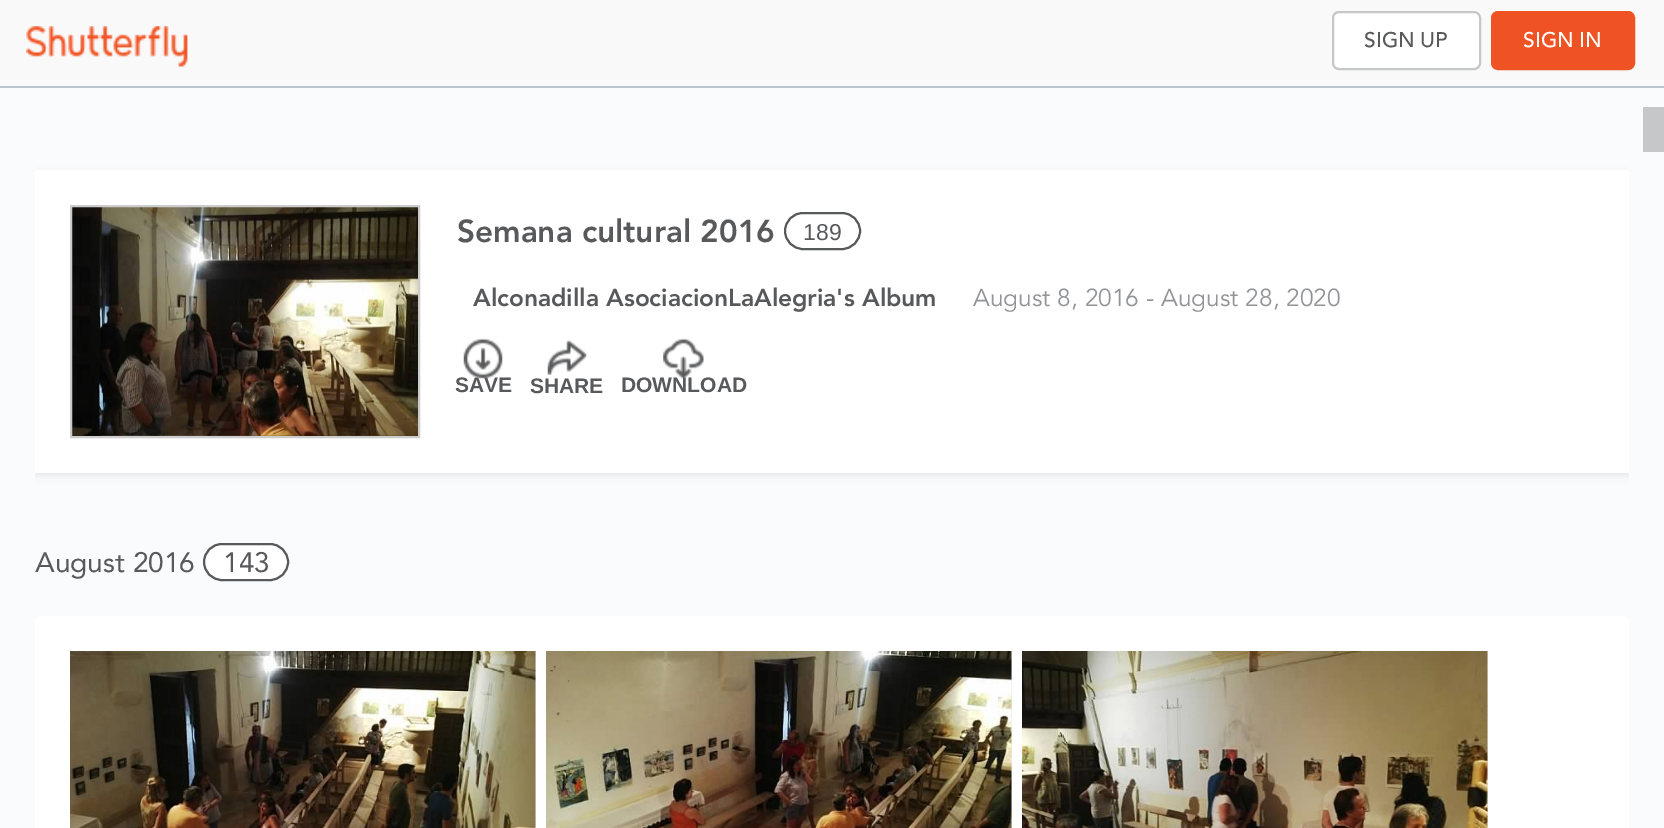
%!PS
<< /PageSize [1664 828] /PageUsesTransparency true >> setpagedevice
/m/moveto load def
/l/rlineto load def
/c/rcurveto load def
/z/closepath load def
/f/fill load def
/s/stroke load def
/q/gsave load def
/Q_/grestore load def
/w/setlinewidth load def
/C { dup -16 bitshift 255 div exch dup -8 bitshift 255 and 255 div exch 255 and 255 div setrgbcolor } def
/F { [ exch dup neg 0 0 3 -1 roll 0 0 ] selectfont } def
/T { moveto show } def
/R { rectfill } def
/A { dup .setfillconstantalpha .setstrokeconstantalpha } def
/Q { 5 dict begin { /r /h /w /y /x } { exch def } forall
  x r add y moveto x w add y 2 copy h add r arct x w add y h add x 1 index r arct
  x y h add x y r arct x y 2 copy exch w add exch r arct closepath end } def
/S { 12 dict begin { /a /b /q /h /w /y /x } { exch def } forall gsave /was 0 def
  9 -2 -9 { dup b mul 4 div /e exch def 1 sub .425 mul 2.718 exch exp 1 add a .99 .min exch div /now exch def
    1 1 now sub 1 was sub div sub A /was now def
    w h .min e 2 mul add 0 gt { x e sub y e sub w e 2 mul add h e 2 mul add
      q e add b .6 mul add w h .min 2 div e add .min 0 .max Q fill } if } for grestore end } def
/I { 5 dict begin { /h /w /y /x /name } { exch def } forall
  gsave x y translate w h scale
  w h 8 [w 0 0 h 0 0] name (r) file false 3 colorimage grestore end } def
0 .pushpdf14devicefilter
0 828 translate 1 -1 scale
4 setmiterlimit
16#FAFBFC C
0 0 1664 828 R
16#F9F9F9 C
0 0 1664 86 R
16#B9C4CE C
0 86 1664 2 R
(1.rgb) 26 26 162 41 I
16#FFFFFF C
1333 12 147 57 6 Q q f Q_
16#C6C7C9 C
2 w
s
/Avenir-Medium 21 F
16#58595B C
(SIGN UP) 1364 47 T
16#F05323 C
1492 12 142 57 6 Q q f Q_
s
16#FFFFFF C
(SIGN IN) 1523 47 T
16#C6C7C9 C
1643 107 21 45 R
q
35 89 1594 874 rectclip
16#000000 C
35 173 1594 303 0 3.5 .07 S
Q_
16#FFFFFF C
35 170 1594 303 R
(2.rgb) 72 207 346 229 I
16#CCCCCC C
71 206 348 231 rectstroke
/Avenir-Black 31.5 F
16#58595B C
(Semana cultural 2016) 457 242 T
785 213 75 36 18 Q s
/LiberationSans-Regular 23 F
(189) 803 240 T
/Avenir-Black 24.5 F
(Alconadilla AsociacionLaAlegria's Album) 473 306 T
/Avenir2-Regular 24.5 F
16#929497 C
(August 8, 2016 - August 28, 2020) 973 306 T
(3.rgb) 463 338 40 41 I
/LiberationSans-Bold 21 F
16#58595B C
(SAVE) 455 392 T
(4.rgb) 547 340 40 35 I
(SHARE) 530 393 T
(5.rgb) 663 338 41 41 I
(DOWNLOAD) 621 392 T
/Avenir-Regular 28 F
(August 2016) 35 572 T
16#FFFFFF C
204 544 84 36 18 Q q f Q_
16#58595B C
s
(143) 223 572 T
16#FFFFFF C
42 616 m 1580 0 l 4 0 7 3 7 7 c 0 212 l -1594 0 l 0 -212 l 0 -4 3 -7 7 -7 c z f
16#EBEDF0 C
535 651 1 177 R
(6.rgb) 70 651 466 177 I
1011 651 1 177 R
(7.rgb) 546 651 466 177 I
1487 651 1 177 R
(8.rgb) 1022 651 466 177 I
.poppdf14devicefilter showpage
